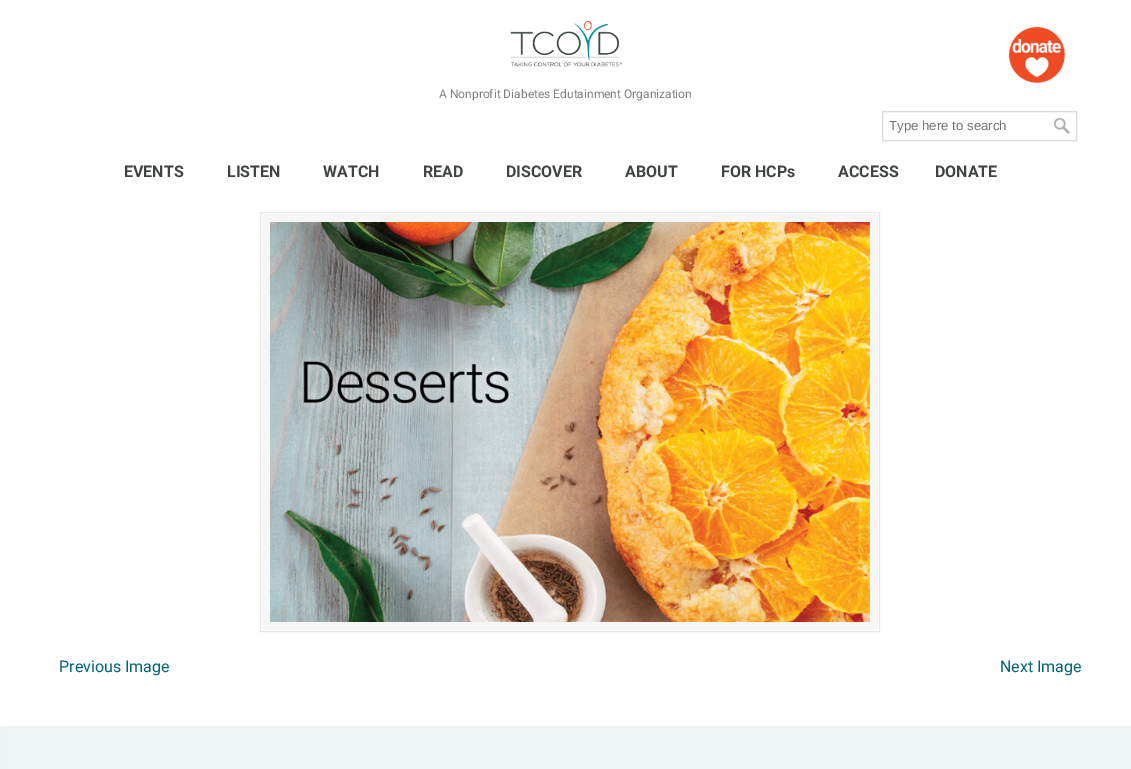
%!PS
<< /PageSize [1131 769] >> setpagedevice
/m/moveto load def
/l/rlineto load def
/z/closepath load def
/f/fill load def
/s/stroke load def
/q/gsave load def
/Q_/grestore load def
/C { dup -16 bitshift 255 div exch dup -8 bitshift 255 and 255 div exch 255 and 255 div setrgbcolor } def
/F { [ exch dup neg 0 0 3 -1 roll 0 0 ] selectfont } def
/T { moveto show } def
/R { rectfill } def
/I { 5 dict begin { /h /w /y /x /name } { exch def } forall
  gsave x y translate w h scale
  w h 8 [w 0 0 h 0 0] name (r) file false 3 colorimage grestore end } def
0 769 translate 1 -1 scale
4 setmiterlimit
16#FFFFFF C
0 0 1131 769 R
(1.rgb) 510 20 113 47 I
/Roboto-Regular 12 F
16#808080 C
(A Nonprofit Diabetes Edutainment Organization) 439 98 T
(2.rgb) 1008 26 58 58 I
16#DDD9D9 C
882.5 111.5 194 29 rectstroke
/LiberationSans-Regular 13.25 F
16#757575 C
(Type here to search) 889 130 T
(3.rgb) 1054 118 16 16 I
/Roboto-Bold 16 F
16#3F4443 C
(EVENTS) 124 177 T
(LISTEN) 227 177 T
(WATCH) 323 177 T
(READ) 423 177 T
(DISCOVER) 506 177 T
(ABOUT) 625 177 T
(FOR HCPs) 721 177 T
(ACCESS) 838 177 T
(DONATE) 935 177 T
16#F6F6F6 C
262 214 616 416 R
16#EAEAEA C
260.5 212.5 619 419 rectstroke
(4.rgb) 270 222 600 400 I
/Roboto-Regular 16 F
16#006574 C
(Previous Image) 59 672 T
(Next Image) 1000 672 T
16#EFF5F5 C
.5 726.5 m 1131 0 l 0 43 l -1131 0 l z q f Q_
16#F2F2F2 C
s
showpage
